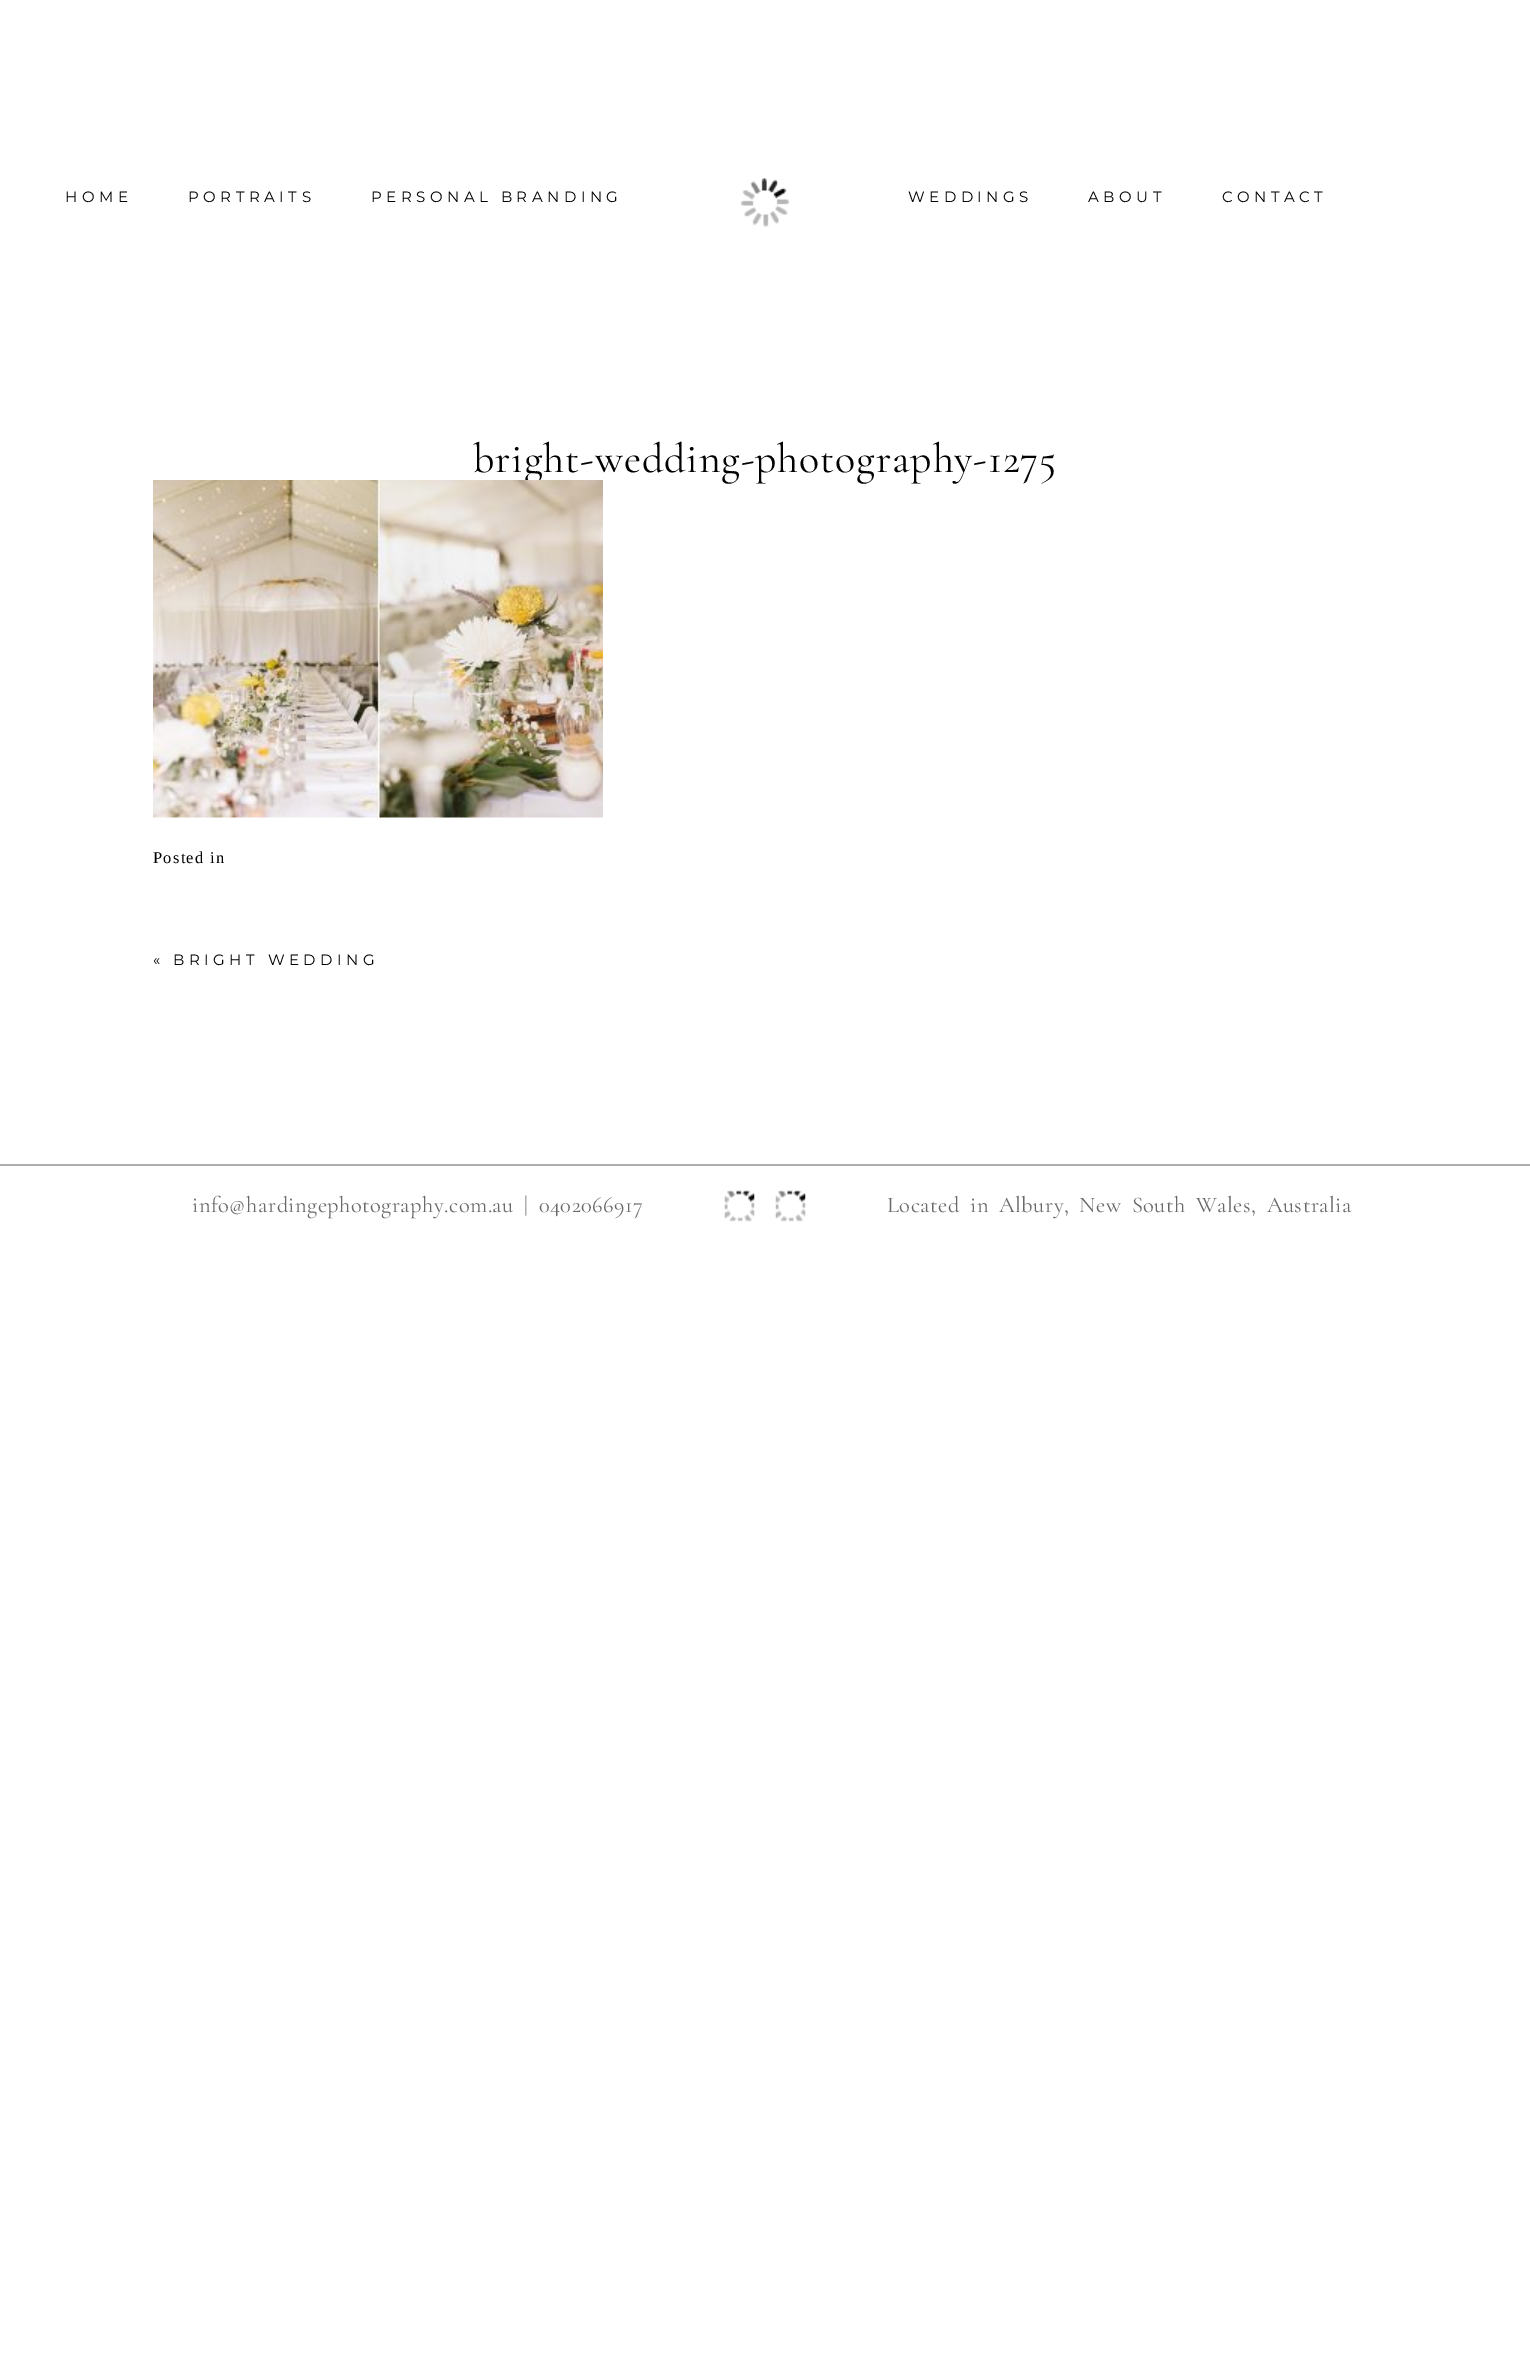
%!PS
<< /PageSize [1530 2358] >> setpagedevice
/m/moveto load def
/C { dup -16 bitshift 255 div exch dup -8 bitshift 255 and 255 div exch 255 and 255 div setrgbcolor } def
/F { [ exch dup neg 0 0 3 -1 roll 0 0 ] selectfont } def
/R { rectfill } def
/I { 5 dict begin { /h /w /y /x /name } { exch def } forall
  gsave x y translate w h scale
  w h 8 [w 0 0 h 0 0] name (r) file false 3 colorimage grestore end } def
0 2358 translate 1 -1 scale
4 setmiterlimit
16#FFFFFF C
0 0 1530 2358 R
/Montserrat-Thin 15 F
16#000000 C
65 202 m 4.5 0 (HOME) ashow
188 202 m 4.5 0 (PORTRAITS) ashow
371 202 m 4.5 0 (PERSONAL BRANDING) ashow
(1.rgb) 741 178 48 49 I
908 202 m 4.5 0 (WEDDINGS) ashow
1088 202 m 4.5 0 (ABOUT) ashow
1222 202 m 4.5 0 (CONTACT) ashow
/CormorantGaramond-Light 42 F
473 472 m .85 0 (bright-wedding-photography-1275) ashow
(2.rgb) 153 480 450 338 I
/LiberationSerif-Regular 16.5 F
153 863 m 1.25 0 (Posted in) ashow
/Montserrat-Thin 15 F
153 965 m 4.5 0 (« BRIGHT WEDDING) ashow
16#ADADAD C
0 1164 1530 2 R
/CormorantGaramond-Light 22.5 F
16#6B6868 C
192 1212 m .45 0 (info@h) ashow
258 1212 m 4.5 0 32 .45 0 (ardingephotography.com.au | 0402066917) awidthshow
(3.rgb) 724 1190 31 32 I
(3.rgb) 775 1190 31 32 I
887 1212 m 4.5 0 32 .45 0 (Located in Albury, New South Wales, Australia) awidthshow
showpage
